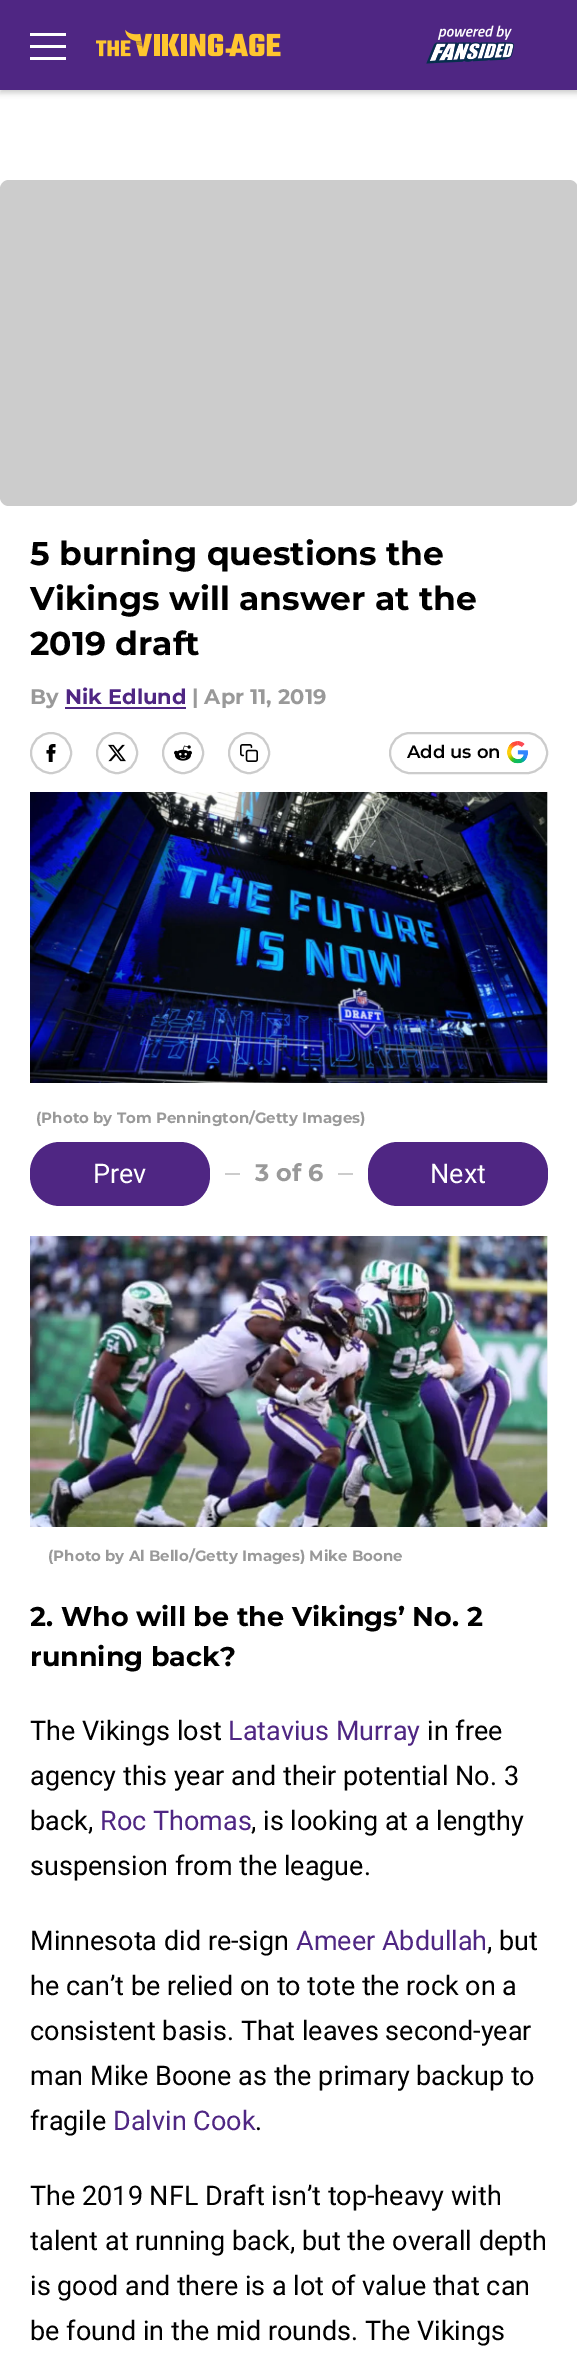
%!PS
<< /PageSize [577 2375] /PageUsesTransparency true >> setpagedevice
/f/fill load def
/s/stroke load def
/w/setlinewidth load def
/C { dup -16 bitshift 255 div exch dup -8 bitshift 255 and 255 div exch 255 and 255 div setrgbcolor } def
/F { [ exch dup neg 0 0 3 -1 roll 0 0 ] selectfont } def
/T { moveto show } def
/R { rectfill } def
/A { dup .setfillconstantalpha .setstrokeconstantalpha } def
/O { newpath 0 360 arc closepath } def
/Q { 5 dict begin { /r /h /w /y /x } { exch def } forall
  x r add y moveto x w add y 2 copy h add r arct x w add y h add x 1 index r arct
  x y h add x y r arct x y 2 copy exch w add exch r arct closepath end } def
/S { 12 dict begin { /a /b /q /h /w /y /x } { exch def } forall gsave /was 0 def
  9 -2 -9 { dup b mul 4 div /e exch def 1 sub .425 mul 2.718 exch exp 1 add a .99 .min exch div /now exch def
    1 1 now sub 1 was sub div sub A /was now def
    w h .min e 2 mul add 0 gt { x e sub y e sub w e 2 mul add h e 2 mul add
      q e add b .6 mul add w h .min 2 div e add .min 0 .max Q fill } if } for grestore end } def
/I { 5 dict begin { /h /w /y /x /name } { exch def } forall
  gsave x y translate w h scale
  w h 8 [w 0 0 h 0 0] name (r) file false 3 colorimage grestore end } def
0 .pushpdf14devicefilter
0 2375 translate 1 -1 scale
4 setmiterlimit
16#FFFFFF C
0 0 577 2375 R
16#000000 C
0 3 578 90 0 3 .2 S
16#4F2683 C
0 0 577 90 R
16#FFFFFF C
30 33 36 3 R
30 45 36 3 R
30 57 36 3 R
(1.rgb) 96 29 185 28 I
(2.rgb) 426 25 89 39 I
16#CCCCCC C
0 180 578 326 9 Q f
/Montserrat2-Thin 33 F
16#000000 C
(5 burning questions the) 30 565 T
(Vikings will answer at the) 30 610 T
(2019 draft) 30 655 T
/Montserrat2-Thin 21 F
16#999999 C
(By) 30 704 T
16#4F2683 C
(Nik Edlund) 65 704 T
65 707 121 2 R
16#999999 C
(| Apr 11, 2019) 192 704 T
16#CCCCCC C
2 w
51 753 20 O s
(3.rgb) 46 744 10 18 I
117 753 20 O s
(4.rgb) 108 744 18 18 I
183 753 20 O s
(5.rgb) 174 745 18 16 I
249 753 20 O s
(6.rgb) 240 744 18 18 I
390 733 157 40 20 Q s
/Montserrat-Thin 18 F
16#000000 C
(Add us on) 407 758 T
(7.rgb) 507 741 21 23 I
16#F7F7F7 C
547 792 1 291 R
(8.rgb) 30 792 518 291 I
/Montserrat2-Thin 15 F
16#999999 C
(\(Photo by Tom Pennington/Getty Images\)) 36 1123 T
16#4F2683 C
30 1142 180 64 30 Q f
/Roboto-Regular 27 F
16#FFFFFF C
(Prev) 93 1183 T
16#CCCCCC C
225 1173 15 2 R
/Montserrat2-Thin 24 F
16#999999 C
(3 of 6) 255 1181 T
16#CCCCCC C
338 1173 15 2 R
16#4F2683 C
368 1142 180 64 30 Q f
/Roboto-Regular 27 F
16#FFFFFF C
(Next) 430 1183 T
16#F7F7F7 C
547 1236 1 291 R
(9.rgb) 30 1236 518 291 I
/Montserrat2-Thin 15 F
16#999999 C
(\(Photo by Al Bello/Getty Images\) Mike Boone) 48 1561 T
/Montserrat2-Thin 27 F
16#000000 C
(2. Who will be the Vikings’ No. 2) 30 1626 T
(running back?) 30 1666 T
/Roboto-Regular 27 F
(The Vikings lost) 30 1740 T
16#4F2683 C
(Latavius Murray) 228 1740 T
16#000000 C
(in free) 427 1740 T
(agency this year and their potential No. 3) 30 1785 T
(back,) 30 1830 T
16#4F2683 C
(Roc Thomas) 100 1830 T
16#000000 C
(, is looking at a lengthy) 251 1830 T
(suspension from the league.) 30 1875 T
(Minnesota did re-sign) 30 1950 T
16#4F2683 C
(Ameer Abdullah) 296 1950 T
16#000000 C
(, but) 487 1950 T
(he can’t be relied on to tote the rock on a) 30 1995 T
(consistent basis. That leaves second-year) 30 2040 T
(man Mike Boone as the primary backup to) 30 2085 T
(fragile) 30 2130 T
16#4F2683 C
(Dalvin Cook) 113 2130 T
16#000000 C
(.) 255 2130 T
(The 2019 NFL Draft isn’t top-heavy with) 30 2205 T
(talent at running back, but the overall depth) 30 2250 T
(is good and there is a lot of value that can) 30 2295 T
(be found in the mid rounds. The Vikings) 30 2340 T
.poppdf14devicefilter showpage
